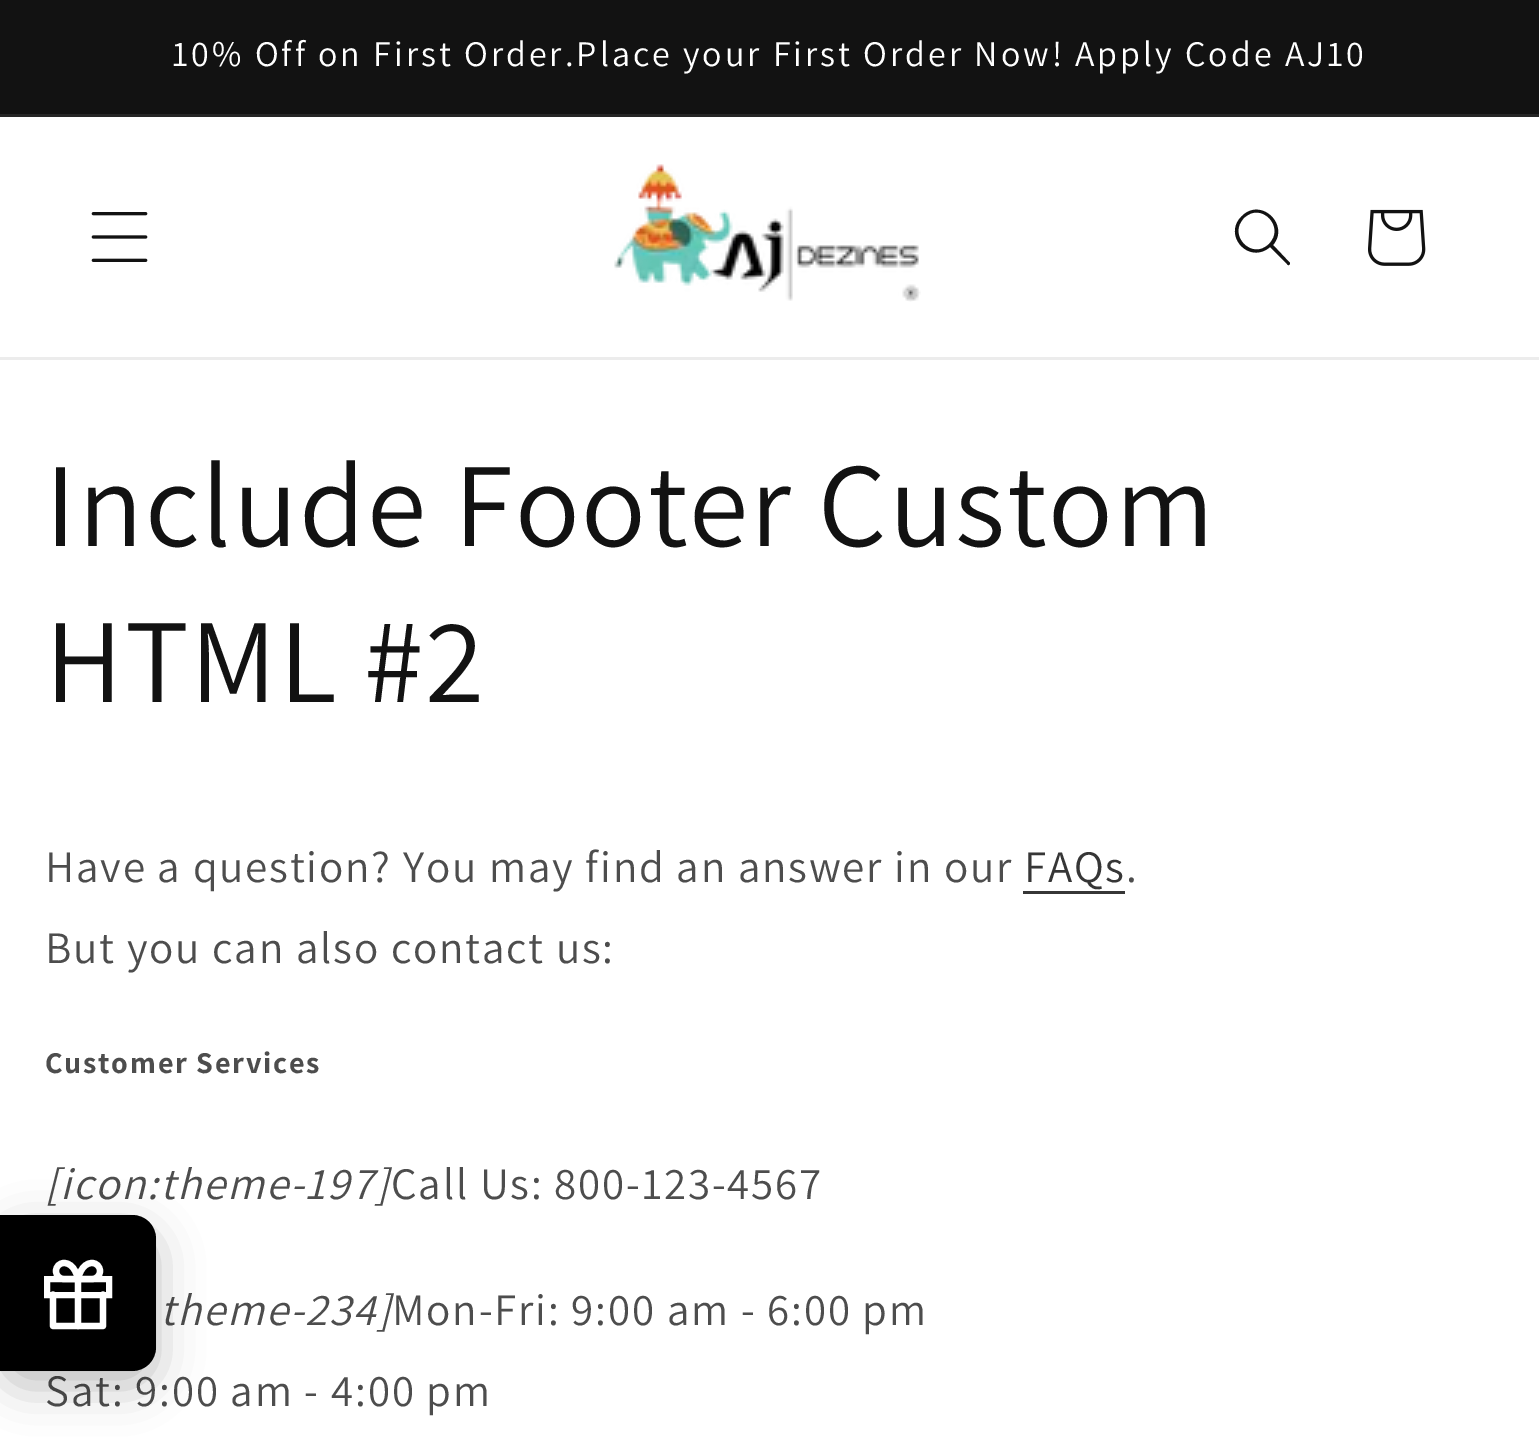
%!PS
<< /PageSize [1539 1446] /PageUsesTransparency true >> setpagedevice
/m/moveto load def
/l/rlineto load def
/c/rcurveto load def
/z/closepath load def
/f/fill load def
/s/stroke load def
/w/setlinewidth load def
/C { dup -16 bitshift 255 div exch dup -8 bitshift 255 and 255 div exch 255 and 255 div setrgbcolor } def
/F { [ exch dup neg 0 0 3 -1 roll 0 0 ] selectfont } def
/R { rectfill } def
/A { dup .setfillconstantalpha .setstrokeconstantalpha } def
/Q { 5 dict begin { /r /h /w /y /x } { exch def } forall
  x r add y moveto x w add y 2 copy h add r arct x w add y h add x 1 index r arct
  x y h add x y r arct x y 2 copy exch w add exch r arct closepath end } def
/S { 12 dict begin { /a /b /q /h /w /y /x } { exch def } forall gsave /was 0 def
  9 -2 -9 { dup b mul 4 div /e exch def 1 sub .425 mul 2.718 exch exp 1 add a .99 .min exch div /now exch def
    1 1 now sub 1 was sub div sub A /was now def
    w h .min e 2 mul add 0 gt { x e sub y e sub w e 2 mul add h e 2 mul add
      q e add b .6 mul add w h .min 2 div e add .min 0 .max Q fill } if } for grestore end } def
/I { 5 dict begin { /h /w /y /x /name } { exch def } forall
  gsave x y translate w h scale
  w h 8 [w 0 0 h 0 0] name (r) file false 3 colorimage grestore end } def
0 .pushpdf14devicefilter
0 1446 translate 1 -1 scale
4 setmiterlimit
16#FFFFFF C
0 0 1539 1446 R
16#121212 C
0 0 1539 114 R
16#252525 C
0 114 1539 3 R
/Assistant-Regular 36 F
16#FFFFFF C
172 66 m 3 0 (10% Off on First Order.Place your First Order Now! Apply Code AJ10) ashow
16#ECECEC C
0 357 1539 3 R
(1.rgb) 91 212 57 50 I
(2.rgb) 614 164 307 138 I
16#121212 C
1269 244 m -17 17 -42 -9 -25 -26 c 17 -17 42 9 25 26 c 1270 247 m -21 18 -48 -12 -28 -31 c 19 -19 48 9 31 29 c 17 18 l 0 2 -2 3 -3 1 c z eofill
(3.rgb) 1368 209 58 57 I
/Assistant-Regular 120 F
45 546 m 1.8 0 (Include Footer Custom) ashow
45 702 m 1.8 0 (HTML #2) ashow
/Assistant-Regular 45 F
16#4D4D4D C
45 882 m 1.8 0 (Have a question? You may find an answer in our) ashow
16#363636 C
1024 882 m 1.8 0 (FAQs) ashow
1023 891 102 3 R
16#4D4D4D C
1126 882 m 1.8 0 (.) ashow
45 963 m 1.8 0 (But you can also contact us:) ashow
/Assistant-Bold 30.25 F
45 1073 m 1.8 0 (Customer Services) ashow
/Assistant-Italic 45 F
45 1199 m 1.8 0 ([icon:theme-197]) ashow
/Assistant-Regular 45 F
391 1199 m 1.8 0 (Call Us: 800-123-4567) ashow
/Assistant-Italic 45 F
160 1325 m 1.8 0 (theme-234]) ashow
/Assistant-Regular 45 F
392 1325 m 1.8 0 (Mon-Fri: 9:00 am - 6:00 pm) ashow
45 1406 m 1.8 0 (Sat: 9:00 am - 4:00 pm) ashow
16#000000 C
0 1230 156 156 24 22.5 .25 S
0 1215 m 132 0 l 13.5 0 24 10.5 24 24 c 0 108 l 0 13.5 -10.5 24 -24 24 c -132 0 l z f
0.1 A
3 w
1.5 1216.5 m 130.5 0 l 12.5 0 22.5 10 22.5 22.5 c 0 108 l 0 12.5 -10 22.5 -22.5 22.5 c -130.5 0 l z s
1 A
16#FFFFFF C
6.2 w
1 setlinecap
1 setlinejoin
103 1294.5 m 0 31.5 l -50 0 l 0 -31.5 l s
6 w
0 setlinecap
0 setlinejoin
47 1279 62 16 rectstroke
6.2 w
1 setlinecap
1 setlinejoin
78 1326 m 0 -47 l s
78 1279 m -14 0 l -4.5 0 -8 -3.5 -8 -8 c 0 -4.5 3.5 -8 8 -8 c 11 0 14 16 14 16 c z 78 1279 m 14 0 l 4.5 0 8 -3.5 8 -8 c 0 -4.5 -3.5 -8 -8 -8 c -11 0 -14 16 -14 16 c z s
.poppdf14devicefilter showpage
